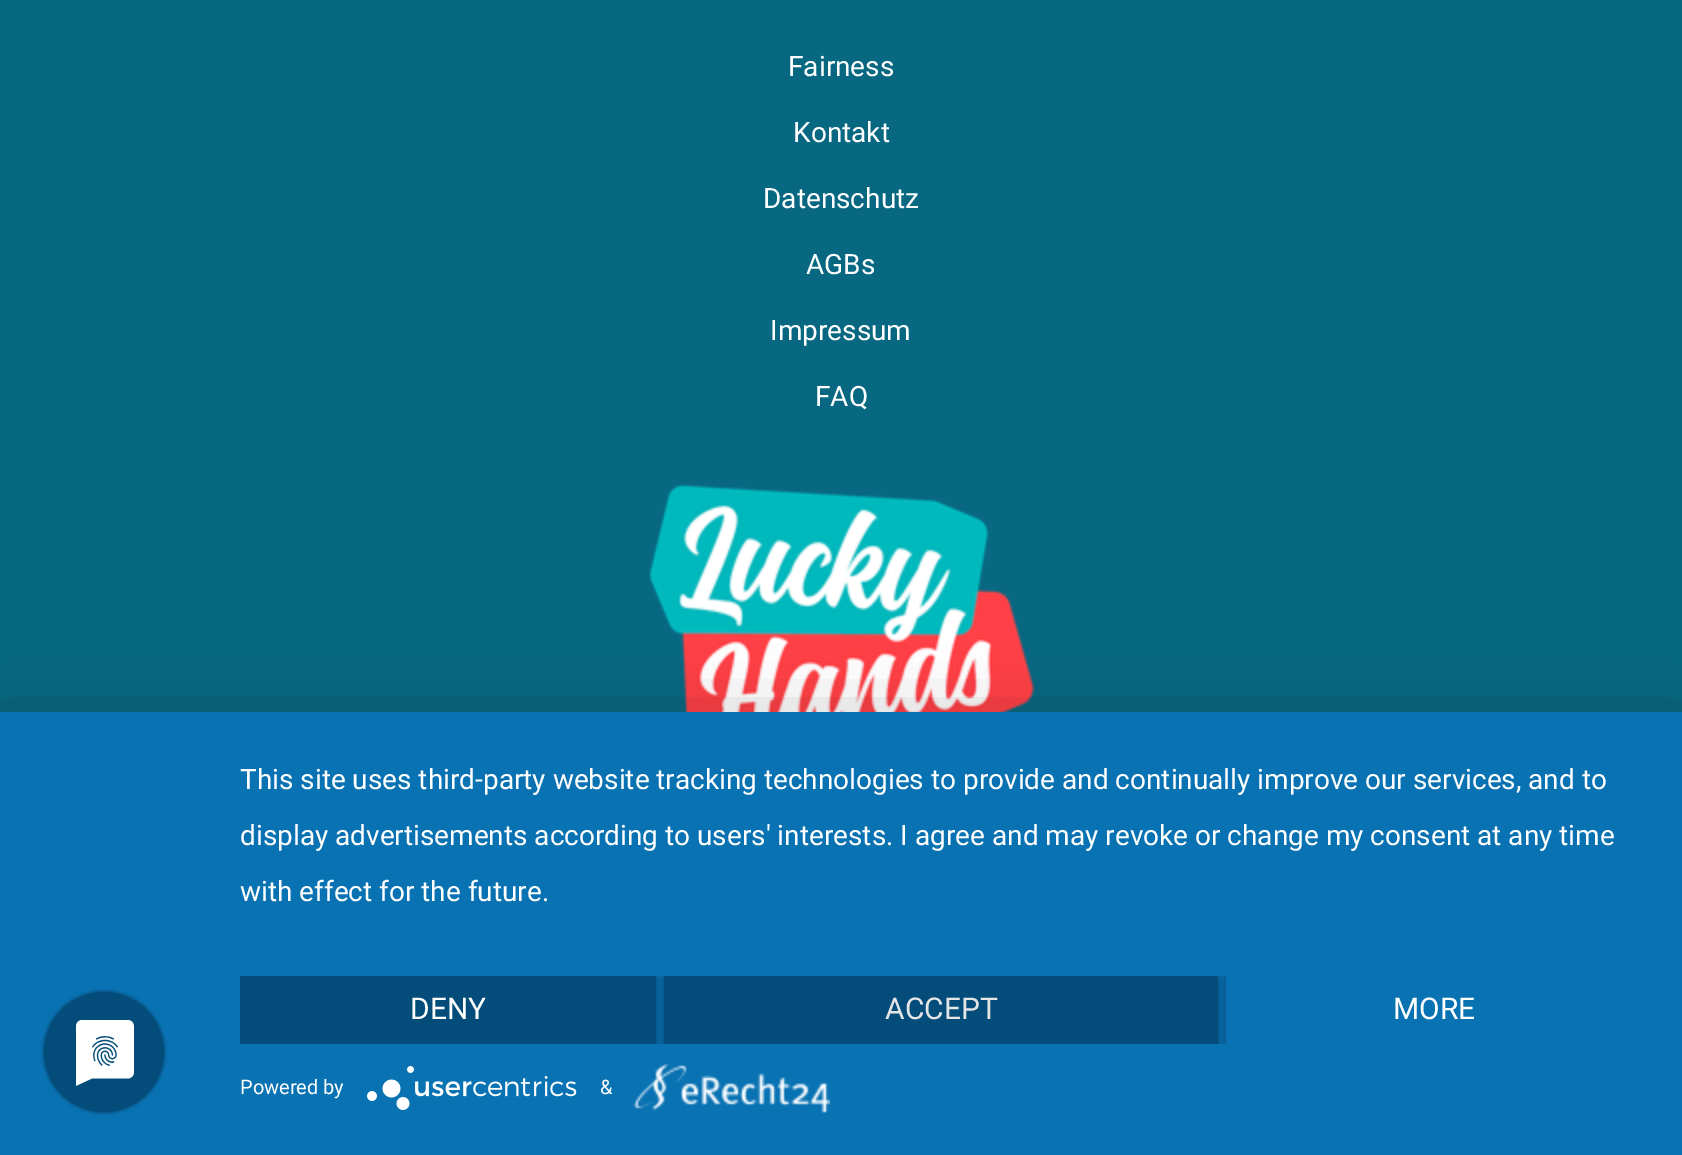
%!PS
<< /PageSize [1682 1155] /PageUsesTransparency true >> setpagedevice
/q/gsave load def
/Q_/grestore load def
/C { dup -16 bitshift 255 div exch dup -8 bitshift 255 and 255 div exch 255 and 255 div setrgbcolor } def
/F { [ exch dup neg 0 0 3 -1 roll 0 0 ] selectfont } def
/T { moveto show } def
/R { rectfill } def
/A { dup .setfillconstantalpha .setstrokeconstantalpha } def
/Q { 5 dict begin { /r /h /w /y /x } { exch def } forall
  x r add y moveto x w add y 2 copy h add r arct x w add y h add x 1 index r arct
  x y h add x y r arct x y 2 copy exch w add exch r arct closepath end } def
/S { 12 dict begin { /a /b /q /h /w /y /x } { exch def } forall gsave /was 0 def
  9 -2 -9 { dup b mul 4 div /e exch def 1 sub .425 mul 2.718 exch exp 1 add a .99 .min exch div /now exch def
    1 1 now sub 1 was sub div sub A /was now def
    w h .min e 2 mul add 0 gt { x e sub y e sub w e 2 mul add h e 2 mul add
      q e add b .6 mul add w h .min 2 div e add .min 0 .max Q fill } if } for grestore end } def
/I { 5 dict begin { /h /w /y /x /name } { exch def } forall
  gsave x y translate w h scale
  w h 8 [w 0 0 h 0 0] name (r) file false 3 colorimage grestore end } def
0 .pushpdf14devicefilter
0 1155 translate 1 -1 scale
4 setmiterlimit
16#086882 C
0 0 1682 1155 R
/Roboto-Regular 28 F
16#FFFFFF C
(Fairness) 788 76 T
(Kontakt) 793 142 T
(Datenschutz) 763 208 T
(AGBs) 806 274 T
(Impressum) 770 340 T
(FAQ) 815 406 T
(1.rgb) 649 484 386 228 I
16#000000 C
0 724 1682 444 0 36 .3 S
16#0972B3 C
0 712 1682 443 R
(2.rgb) 41 988 126 128 I
16#FFFFFF C
(This site uses third-party website tracking technologies to provide and continually improve our services, and to) 240 789 T
(display advertisements according to users' interests. I agree and may revoke or change my consent at any time) 240 845 T
(with effect for the future.) 240 901 T
q
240 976 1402 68 rectclip
16#000000 C
240 978 416 68 0 4 .4 S
Q_
16#044D7A C
240 976 416 68 R
/Roboto-Regular 30 F
16#FFFFFF C
(DENY) 410 1019 T
q
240 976 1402 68 rectclip
16#000000 C
664 978 554 68 0 4 .4 S
Q_
16#044D7A C
664 976 554 68 R
16#E6E6E6 C
(ACCEPT) 885 1019 T
q
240 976 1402 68 rectclip
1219 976 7 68 rectclip
16#000000 C
1226 978 416 68 0 4 .4 S
Q_
16#FFFFFF C
(MORE) 1393 1019 T
/Roboto-Regular 20 F
(Powered by) 240 1094 T
(3.rgb) 367 1066 210 44 I
(&) 600 1094 T
(4.rgb) 633 1064 197 49 I
.poppdf14devicefilter showpage
